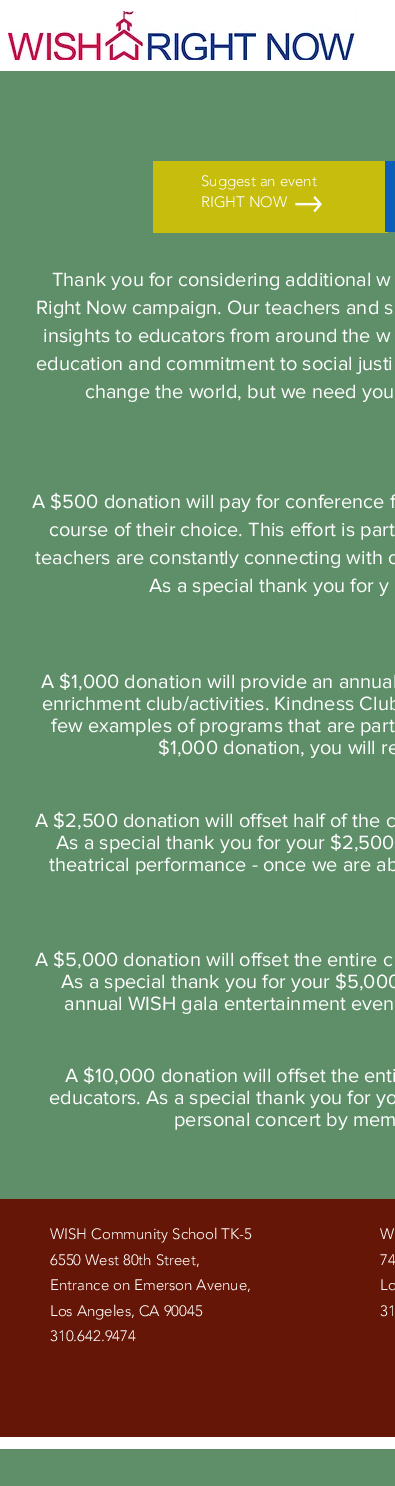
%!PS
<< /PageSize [395 1486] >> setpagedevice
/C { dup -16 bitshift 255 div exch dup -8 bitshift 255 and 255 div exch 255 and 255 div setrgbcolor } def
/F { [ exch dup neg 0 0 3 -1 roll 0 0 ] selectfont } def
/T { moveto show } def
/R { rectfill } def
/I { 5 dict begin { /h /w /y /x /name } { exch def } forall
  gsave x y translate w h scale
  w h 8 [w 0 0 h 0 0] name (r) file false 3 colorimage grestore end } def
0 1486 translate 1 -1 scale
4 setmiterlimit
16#5E8F68 C
0 0 395 1486 R
16#FFFFFF C
0 0 395 71 R
(1.rgb) 8 7 350 53 I
16#C7BD0C C
153 161 235 72 R
/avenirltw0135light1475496-Light 15 F
16#FFFFFF C
(Suggest an event) 201 186 T
(RIGHT NOW) 201 207 T
(2.rgb) 295 196 27 17 I
16#0D5EBA C
385 161 10 71 R
/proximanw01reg-Regular 20 F
16#FFFFFF C
(Thank you for considering additional w) 52 286 T
(Right Now campaign. Our teachers and s) 36 314 T
(insights to educators from around the w) 43 342 T
(education and commitment to social justi) 36 370 T
(change the world, but we need you) 85 398 T
(A $500 donation will pay for conference f) 32 508 T
(course of their choice. This effort is part) 49 536 T
(teachers are constantly connecting with o) 35 564 T
(As a special thank you for y) 149 592 T
(A $1,000 donation will provide an annual) 41 688 T
(enrichment club/activities. Kindness Club) 42 710 T
(few examples of programs that are part) 51 732 T
($1,000 donation, you will re) 158 754 T
(A $2,500 donation will offset half of the c) 35 827 T
(As a special thank you for your $2,500) 56 849 T
(theatrical performance - once we are ab) 49 871 T
(A $5,000 donation will offset the entire c) 35 966 T
(As a special thank you for your $5,000) 61 988 T
(annual WISH gala entertainment even) 64 1010 T
(A $10,000 donation will offset the enti) 65 1082 T
(educators. As a special thank you for yo) 49 1104 T
(personal concert by mem) 174 1126 T
16#661606 C
0 1199 395 238 R
/avenirltw0135light1475496-Light 15 F
16#FFFFFF C
(WISH Community School TK-5) 50 1239 T
(6550 West 80th Street,) 50 1265 T
(Entrance on Emerson Avenue,) 50 1290 T
(Los Angeles, CA 90045) 50 1316 T
(310.642.9474) 50 1341 T
(W) 380 1239 T
(74) 380 1265 T
(Lo) 380 1290 T
(31) 380 1316 T
0 1437 395 12 R
showpage
